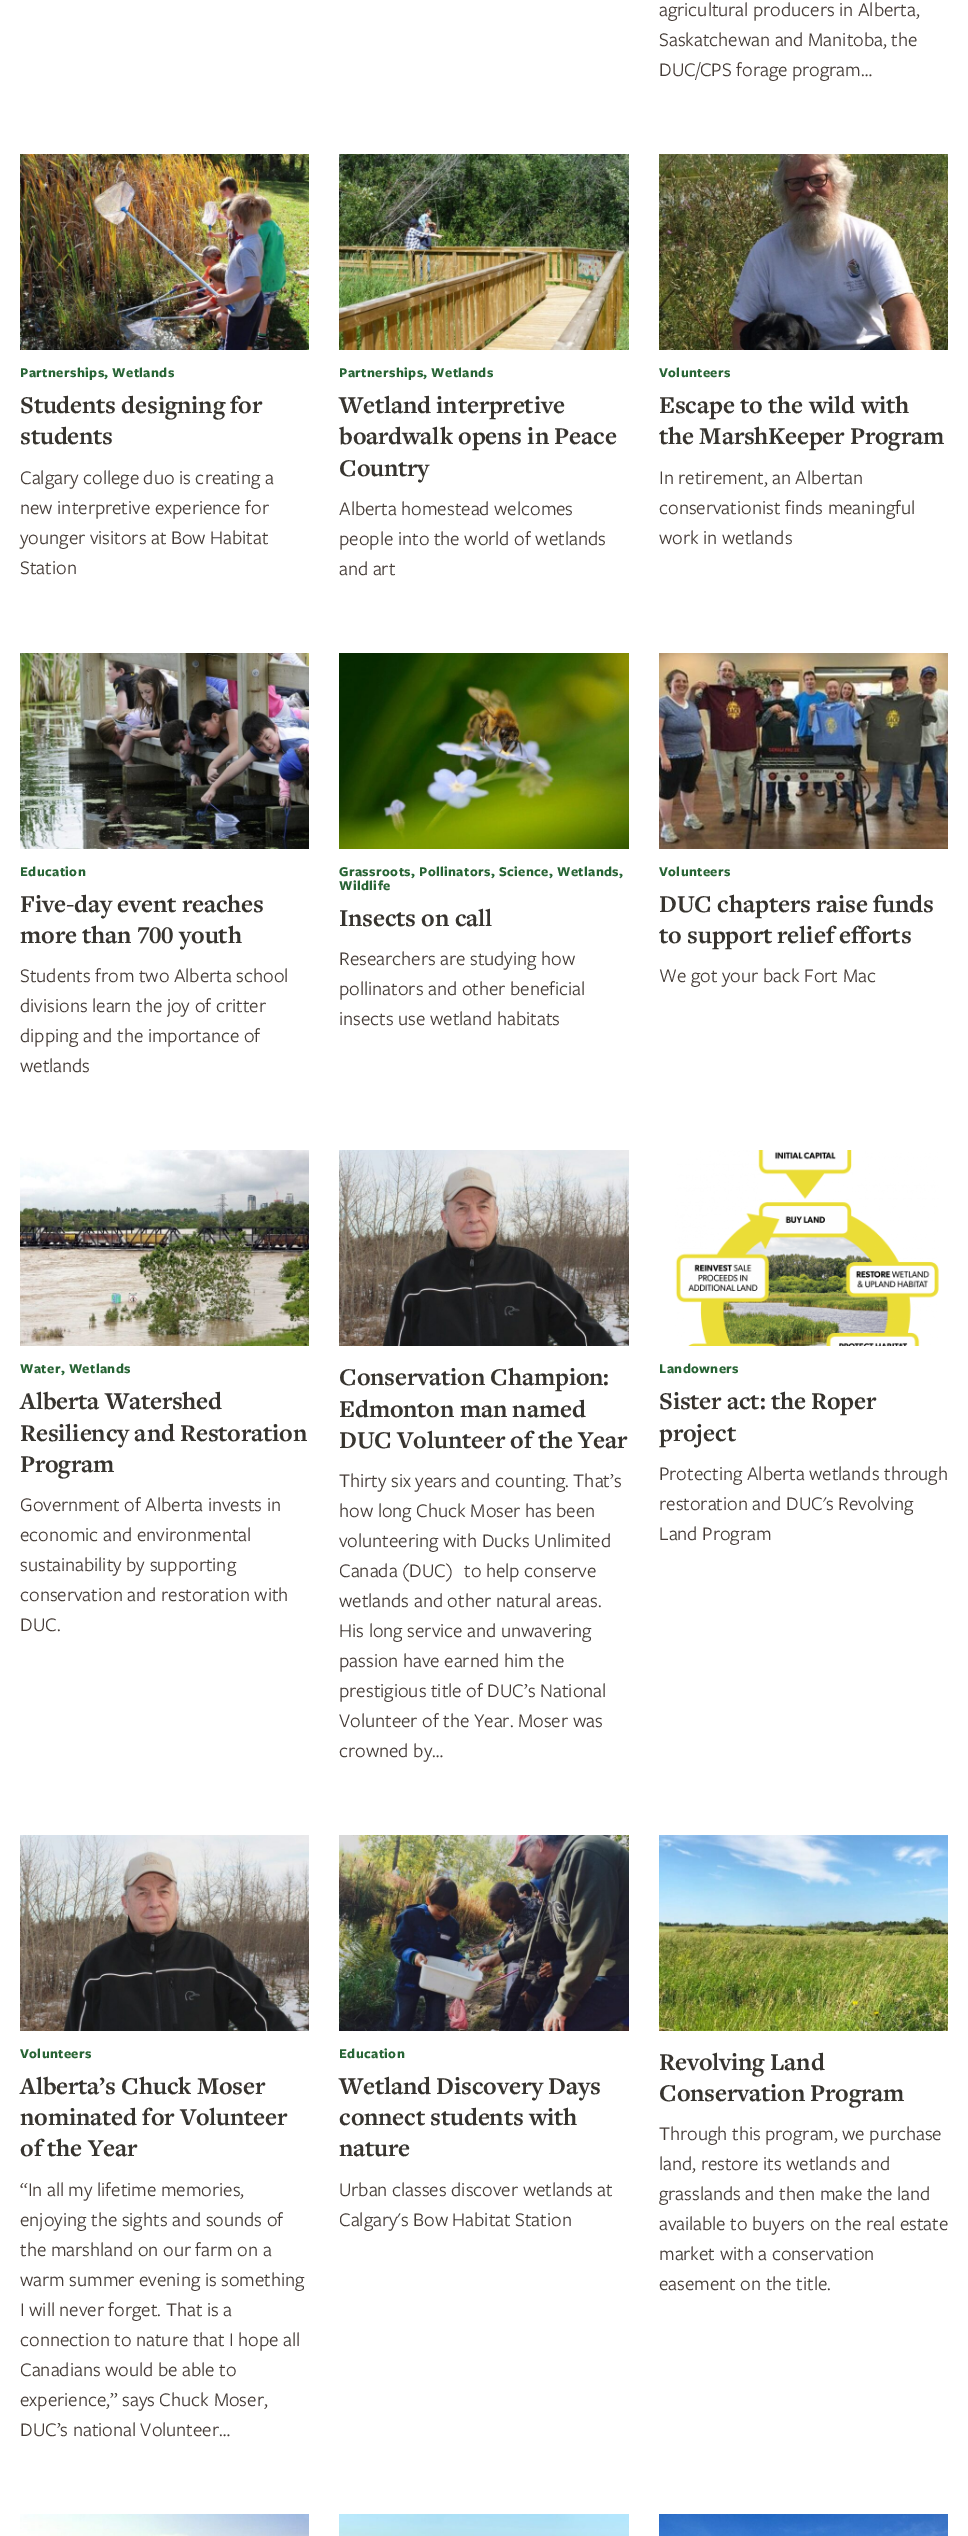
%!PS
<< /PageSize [968 2536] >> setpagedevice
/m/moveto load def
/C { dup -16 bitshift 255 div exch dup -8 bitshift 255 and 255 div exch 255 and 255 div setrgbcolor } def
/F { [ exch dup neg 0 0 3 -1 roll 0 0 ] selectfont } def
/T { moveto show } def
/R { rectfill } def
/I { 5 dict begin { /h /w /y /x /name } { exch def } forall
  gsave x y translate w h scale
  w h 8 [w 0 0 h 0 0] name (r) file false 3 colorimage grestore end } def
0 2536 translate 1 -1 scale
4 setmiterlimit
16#FFFFFF C
0 0 968 2536 R
/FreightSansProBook-Regular 20 F
16#453C37 C
(agricultural producers in Alberta,) 659 16 T
(Saskatchewan and Manitoba, the) 659 46 T
(DUC/CPS forage program…) 659 76 T
(1.rgb) 20 154 289 196 I
/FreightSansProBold-Bold 14 F
16#286435 C
20 377 m .4 0 (Partnerships, Wetlands) ashow
/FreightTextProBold-Bold 25 F
16#383530 C
20 413 m -.2 0 (Students designing for) ashow
20 444 m -.2 0 (students) ashow
/FreightSansProBook-Regular 20 F
16#453C37 C
(Calgary college duo is creating a) 20 484 T
(new interpretive experience for) 20 514 T
(younger visitors at Bow Habitat) 20 544 T
(Station) 20 574 T
(2.rgb) 339 154 290 196 I
/FreightSansProBold-Bold 14 F
16#286435 C
339 377 m .4 0 (Partnerships, Wetlands) ashow
/FreightTextProBold-Bold 25 F
16#383530 C
339 413 m -.2 0 (Wetland interpretive) ashow
339 444 m -.2 0 (boardwalk opens in Peace) ashow
339 476 m -.2 0 (Country) ashow
/FreightSansProBook-Regular 20 F
16#453C37 C
(Alberta homestead welcomes) 339 515 T
(people into the world of wetlands) 339 545 T
(and art) 339 575 T
(3.rgb) 659 154 289 196 I
/FreightSansProBold-Bold 14 F
16#286435 C
659 377 m .4 0 (Volunteers) ashow
/FreightTextProBold-Bold 25 F
16#383530 C
659 413 m -.2 0 (Escape to the wild with) ashow
659 444 m -.2 0 (the MarshKeeper Program) ashow
/FreightSansProBook-Regular 20 F
16#453C37 C
(In retirement, an Albertan) 659 484 T
(conservationist finds meaningful) 659 514 T
(work in wetlands) 659 544 T
(4.rgb) 20 653 289 196 I
/FreightSansProBold-Bold 14 F
16#286435 C
20 876 m .4 0 (Education) ashow
/FreightTextProBold-Bold 25 F
16#383530 C
20 912 m -.2 0 (Five-day event reaches) ashow
/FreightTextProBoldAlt-Bold 25 F
20 943 m -.2 0 (more than 700 youth) ashow
/FreightSansProBook-Regular 20 F
16#453C37 C
(Students from two Alberta school) 20 982 T
(divisions learn the joy of critter) 20 1012 T
(dipping and the importance of) 20 1042 T
(wetlands) 20 1072 T
(5.rgb) 339 653 290 196 I
/FreightSansProBold-Bold 14 F
16#286435 C
339 876 m .4 0 (Grassroots, Pollinators, Science, Wetlands,) ashow
339 890 m .4 0 (Wildlife) ashow
/FreightTextProBold-Bold 25 F
16#383530 C
339 926 m -.2 0 (Insects on call) ashow
/FreightSansProBook-Regular 20 F
16#453C37 C
(Researchers are studying how) 339 965 T
(pollinators and other beneficial) 339 995 T
(insects use wetland habitats) 339 1025 T
(6.rgb) 659 653 289 196 I
/FreightSansProBold-Bold 14 F
16#286435 C
659 876 m .4 0 (Volunteers) ashow
/FreightTextProBold-Bold 25 F
16#383530 C
659 912 m -.2 0 (DUC chapters raise funds) ashow
659 943 m -.2 0 (to support relief efforts) ashow
/FreightSansProBook-Regular 20 F
16#453C37 C
(We got your back Fort Mac) 659 982 T
(7.rgb) 20 1150 289 196 I
/FreightSansProBold-Bold 14 F
16#286435 C
20 1373 m .4 0 (Water, Wetlands) ashow
/FreightTextProBold-Bold 25 F
16#383530 C
20 1409 m -.2 0 (Alberta Watershed) ashow
20 1441 m -.2 0 (Resiliency and Restoration) ashow
20 1472 m -.2 0 (Program) ashow
/FreightSansProBook-Regular 20 F
16#453C37 C
(Government of Alberta invests in) 20 1511 T
(economic and environmental) 20 1541 T
(sustainability by supporting) 20 1571 T
(conservation and restoration with) 20 1601 T
(DUC.) 20 1631 T
(8.rgb) 339 1150 290 196 I
/FreightTextProBold-Bold 25 F
16#383530 C
339 1385 m -.2 0 (Conservation Champion:) ashow
339 1417 m -.2 0 (Edmonton man named) ashow
339 1448 m -.2 0 (DUC Volunteer of the Year) ashow
/FreightSansProBook-Regular 20 F
16#453C37 C
(Thirty six years and counting. That’s) 339 1487 T
(how long Chuck Moser has been) 339 1517 T
(volunteering with Ducks Unlimited) 339 1547 T
(Canada \(DUC\)) 339 1577 T
(to help conserve) 464 1577 T
(wetlands and other natural areas.) 339 1607 T
(His long service and unwavering) 339 1637 T
(passion have earned him the) 339 1667 T
(prestigious title of DUC’s National) 339 1697 T
(Volunteer of the Year. Moser was) 339 1727 T
(crowned by…) 339 1757 T
(9.rgb) 675 1150 264 196 I
/FreightSansProBold-Bold 14 F
16#286435 C
659 1373 m .4 0 (Landowners) ashow
/FreightTextProBold-Bold 25 F
16#383530 C
659 1409 m -.2 0 (Sister act: the Roper) ashow
659 1441 m -.2 0 (project) ashow
/FreightSansProBook-Regular 20 F
16#453C37 C
(Protecting Alberta wetlands through) 659 1480 T
(restoration and DUC's Revolving) 659 1510 T
(Land Program) 659 1540 T
(10.rgb) 20 1835 289 196 I
/FreightSansProBold-Bold 14 F
16#286435 C
20 2058 m .4 0 (Volunteers) ashow
/FreightTextProBold-Bold 25 F
16#383530 C
20 2094 m -.2 0 (Alberta’s Chuck Moser) ashow
20 2125 m -.2 0 (nominated for Volunteer) ashow
20 2156 m -.2 0 (of the Year) ashow
/FreightSansProBook-Regular 20 F
16#453C37 C
(“In all my lifetime memories,) 20 2196 T
(enjoying the sights and sounds of) 20 2226 T
(the marshland on our farm on a) 20 2256 T
(warm summer evening is something) 20 2286 T
(I will never forget. That is a) 20 2316 T
(connection to nature that I hope all) 20 2346 T
(Canadians would be able to) 20 2376 T
(experience,” says Chuck Moser,) 20 2406 T
(DUC’s national Volunteer…) 20 2436 T
(11.rgb) 339 1835 290 196 I
/FreightSansProBold-Bold 14 F
16#286435 C
339 2058 m .4 0 (Education) ashow
/FreightTextProBold-Bold 25 F
16#383530 C
339 2094 m -.2 0 (Wetland Discovery Days) ashow
339 2125 m -.2 0 (connect students with) ashow
339 2156 m -.2 0 (nature) ashow
/FreightSansProBook-Regular 20 F
16#453C37 C
(Urban classes discover wetlands at) 339 2196 T
(Calgary's Bow Habitat Station) 339 2226 T
(12.rgb) 659 1835 289 196 I
/FreightTextProBold-Bold 25 F
16#383530 C
659 2070 m -.2 0 (Revolving Land) ashow
659 2101 m -.2 0 (Conservation Program) ashow
/FreightSansProBook-Regular 20 F
16#453C37 C
(Through this program, we purchase) 659 2140 T
(land, restore its wetlands and) 659 2170 T
(grasslands and then make the land) 659 2200 T
(available to buyers on the real estate) 659 2230 T
(market with a conservation) 659 2260 T
(easement on the title.) 659 2290 T
(13.rgb) 20 2514 289 22 I
(14.rgb) 339 2514 290 22 I
(15.rgb) 659 2514 289 22 I
showpage
